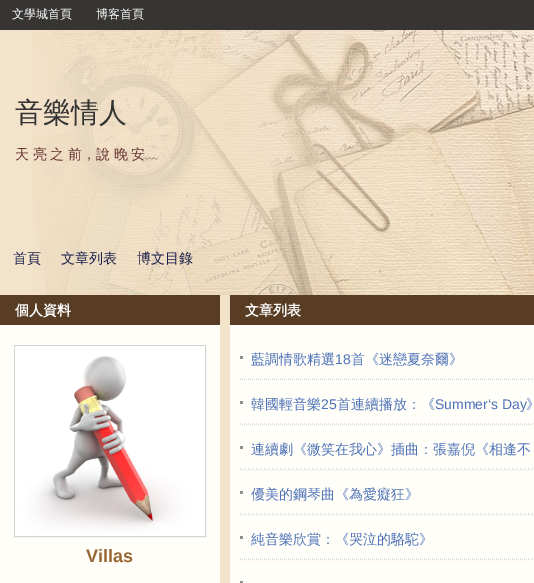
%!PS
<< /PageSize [534 583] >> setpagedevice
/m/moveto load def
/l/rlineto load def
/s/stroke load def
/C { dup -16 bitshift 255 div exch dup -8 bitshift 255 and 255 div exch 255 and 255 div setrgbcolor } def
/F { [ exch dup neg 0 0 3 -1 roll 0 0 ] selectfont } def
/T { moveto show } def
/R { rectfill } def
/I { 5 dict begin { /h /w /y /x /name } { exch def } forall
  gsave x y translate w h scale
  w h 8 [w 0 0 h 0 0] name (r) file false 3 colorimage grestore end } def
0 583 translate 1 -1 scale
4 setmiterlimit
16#F3E3CA C
0 0 534 583 R
16#373533 C
0 0 534 30 R
/WenQuanYiZenHei-Medium 12 F
16#FFFFFF C
(文學城首頁) 12 18 T
(博客首頁) 96 18 T
(1.rgb) 32 30 502 265 I
/WenQuanYiZenHei-Medium 28 F
16#333333 C
(音樂情人) 15 122 T
/WenQuanYiZenHei-Medium 14 F
16#663333 C
15 159 m -.5 0 32 (天 亮 之 前，說 晚 安﹏) widthshow
16#181D4B C
(首頁) 13 263 T
(文章列表) 61 263 T
(博文目錄) 137 263 T
16#583D24 C
0 295 220 30 R
/WenQuanYiZenHei-Bold 14 F
16#FFFFFF C
(個人資料) 15 315 T
16#FFFEF9 C
0 325 220 258 R
16#D3D7D4 C
14.5 345.5 191 191 rectstroke
(2.rgb) 15 346 190 190 I
/LiberationSans-Bold 18 F
16#996633 C
(Villas) 86 562 T
16#583D24 C
230 295 304 30 R
/WenQuanYiZenHei-Bold 14 F
16#FFFFFF C
(文章列表) 245 315 T
16#FFFEF9 C
230 325 304 258 R
(3.rgb) 240 378 293 1 I
16#DDDDDD C
[1 1] 0 setdash
240 379.5 m 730 0 l s
16#909090 C
240 356 3 3 R
/WenQuanYiZenHei-Medium 14 F
16#4E72B8 C
(藍調情歌精選) 251 364 T
/LiberationSans-Regular 14 F
(18) 335 364 T
/WenQuanYiZenHei-Medium 14 F
(首《迷戀夏奈爾》) 351 364 T
(3.rgb) 240 423 293 1 I
16#DDDDDD C
240 424.5 m 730 0 l s
16#909090 C
240 401 3 3 R
16#4E72B8 C
(韓國輕音樂) 251 409 T
/LiberationSans-Regular 14 F
(25) 321 409 T
/WenQuanYiZenHei-Medium 14 F
(首連續播放：《) 337 409 T
/LiberationSans-Regular 14 F
(Summer‘s Day) 435 409 T
/WenQuanYiZenHei-Medium 14 F
(》) 526 409 T
(3.rgb) 240 468 293 1 I
16#DDDDDD C
240 469.5 m 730 0 l s
16#909090 C
240 446 3 3 R
16#4E72B8 C
(連續劇《微笑在我心》插曲：張嘉倪《相逢不) 251 454 T
(3.rgb) 240 513 293 1 I
16#DDDDDD C
240 514.5 m 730 0 l s
16#909090 C
240 491 3 3 R
16#4E72B8 C
(優美的鋼琴曲《為愛癡狂》) 251 499 T
(3.rgb) 240 558 293 1 I
16#DDDDDD C
240 559.5 m 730 0 l s
16#909090 C
240 536 3 3 R
16#4E72B8 C
(純音樂欣賞：《哭泣的駱駝》) 251 544 T
16#909090 C
240 581 3 2 R
showpage
